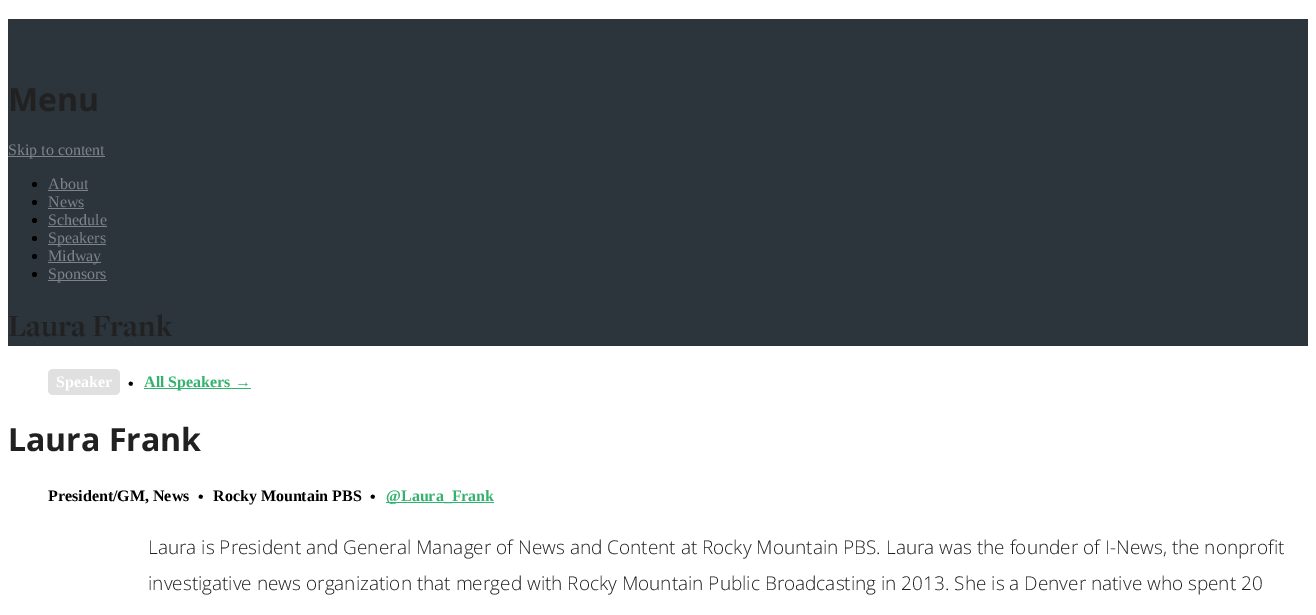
%!PS
<< /PageSize [1316 615] >> setpagedevice
/f/fill load def
/C { dup -16 bitshift 255 div exch dup -8 bitshift 255 and 255 div exch 255 and 255 div setrgbcolor } def
/F { [ exch dup neg 0 0 3 -1 roll 0 0 ] selectfont } def
/T { moveto show } def
/R { rectfill } def
/O { newpath 0 360 arc closepath } def
/Q { 5 dict begin { /r /h /w /y /x } { exch def } forall
  x r add y moveto x w add y 2 copy h add r arct x w add y h add x 1 index r arct
  x y h add x y r arct x y 2 copy exch w add exch r arct closepath end } def
0 615 translate 1 -1 scale
4 setmiterlimit
16#FFFFFF C
0 0 1316 615 R
16#2C343C C
8 19 1300 327 R
/OpenSans-Bold 32 F
16#212121 C
(Menu) 8 111 T
16#7D838B C
8 156 97 1 R
/LiberationSerif-Regular 16 F
(Skip to content) 8 155 T
16#000000 C
34.5 184.5 2.5 O f
16#7D838B C
(About) 48 189 T
48 190 40 1 R
16#000000 C
34.5 202.5 2.5 O f
16#7D838B C
(News) 48 207 T
48 208 36 1 R
16#000000 C
34.5 220.5 2.5 O f
16#7D838B C
(Schedule) 48 225 T
48 226 59 1 R
16#000000 C
34.5 238.5 2.5 O f
16#7D838B C
48 244 58 1 R
(Speakers) 48 243 T
16#000000 C
34.5 256.5 2.5 O f
16#7D838B C
48 262 53 1 R
(Midway) 48 261 T
16#000000 C
34.5 274.5 2.5 O f
16#7D838B C
48 280 59 1 R
(Sponsors) 48 279 T
/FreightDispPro-Bold 32 F
16#212121 C
(Laura Frank) 8 336 T
16#E0E0E0 C
48 369 72 26 5 Q f
/LiberationSerif-Bold 16 F
16#FFFFFF C
(Speaker) 56 387 T
16#000000 C
(•) 128 389 T
16#33B26E C
144 388 107 1 R
(All Speakers →) 144 387 T
/OpenSans-Bold 32 F
16#212121 C
(Laura Frank) 8 451 T
/LiberationSerif-Bold 16 F
16#000000 C
(President/GM, News) 48 501 T
(•) 198 502 T
(Rocky Mountain PBS) 213 501 T
(•) 370 502 T
16#33B26E C
386 502 108 1 R
(@Laura_Frank) 386 501 T
/OpenSans-Light 19 F
16#212121 C
(Laura is President and General Manager of News and Content at Rocky Mountain PBS. Laura was the founder of I-News, the nonprofit) 148 554 T
(investigative news organization that merged with Rocky Mountain Public Broadcasting in 2013. She is a Denver native who spent 20) 148 590 T
showpage
